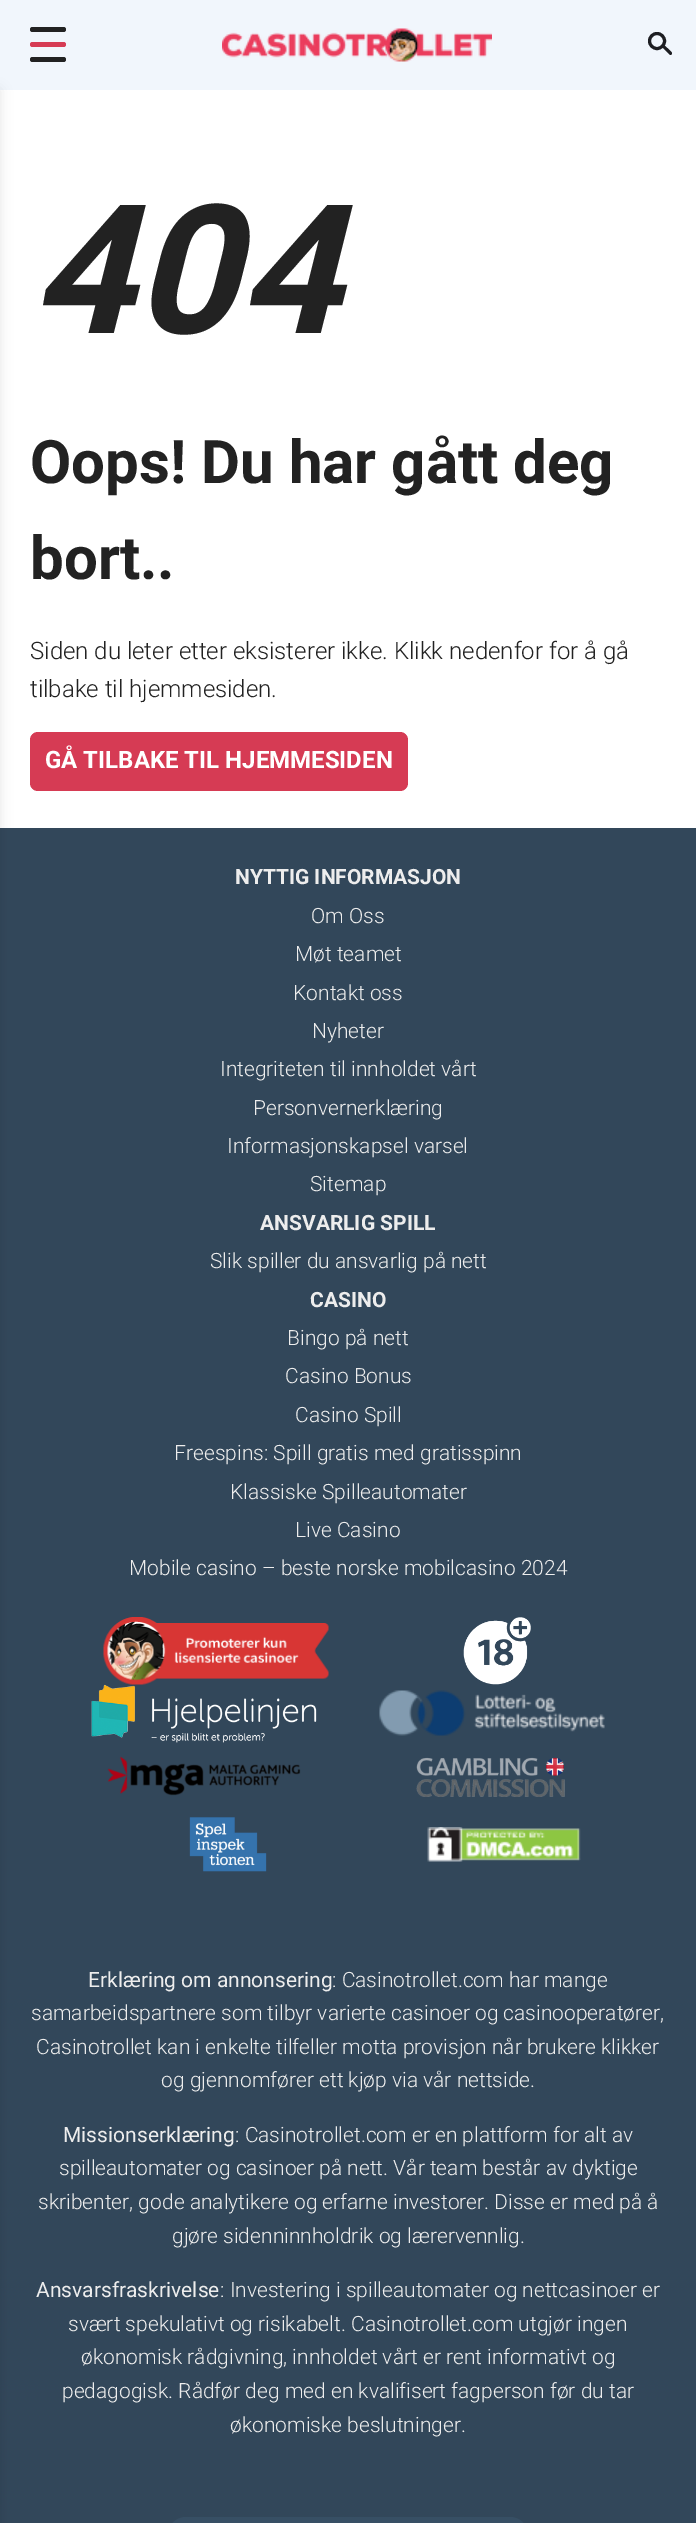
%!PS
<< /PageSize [696 2523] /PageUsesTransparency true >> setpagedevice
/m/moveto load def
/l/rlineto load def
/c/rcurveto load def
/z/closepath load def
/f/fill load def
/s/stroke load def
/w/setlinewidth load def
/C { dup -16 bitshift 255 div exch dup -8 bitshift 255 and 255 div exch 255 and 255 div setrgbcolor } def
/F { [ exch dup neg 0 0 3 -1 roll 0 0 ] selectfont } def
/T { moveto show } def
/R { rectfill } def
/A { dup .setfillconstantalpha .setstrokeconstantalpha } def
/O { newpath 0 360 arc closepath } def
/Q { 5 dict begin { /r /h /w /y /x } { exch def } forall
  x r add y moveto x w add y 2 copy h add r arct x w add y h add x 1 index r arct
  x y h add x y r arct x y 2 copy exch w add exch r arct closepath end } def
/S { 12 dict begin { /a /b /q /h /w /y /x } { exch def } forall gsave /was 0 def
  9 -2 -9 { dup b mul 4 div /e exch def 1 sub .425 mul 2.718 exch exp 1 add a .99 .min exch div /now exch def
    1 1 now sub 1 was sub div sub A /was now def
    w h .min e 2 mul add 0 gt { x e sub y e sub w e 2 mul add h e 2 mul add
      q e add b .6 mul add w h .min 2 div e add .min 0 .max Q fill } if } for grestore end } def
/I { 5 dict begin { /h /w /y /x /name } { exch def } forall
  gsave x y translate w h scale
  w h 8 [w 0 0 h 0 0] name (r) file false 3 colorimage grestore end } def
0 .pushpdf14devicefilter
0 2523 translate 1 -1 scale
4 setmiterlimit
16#FFFFFF C
0 0 696 2523 R
16#F1F6FC C
0 0 696 90 R
16#222222 C
30 27 36 5 2.5 Q f
16#D63B54 C
30 42 36 5 2.5 Q f
16#222222 C
30 57 36 5 2.5 Q f
(1.rgb) 222 28 270 34 I
16#1D1E22 C
3 w
657 41 7.5 O s
663 44 m 8.5 8 l .5 1 .5 2 0 2.5 c -.5 .5 -1.5 .5 -2 0 c -8.5 -8.5 l z f
16#32475A C
0 828 696 1695 R
16#000000 C
-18 90 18 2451 0 6 .1 S
/Roboto-BoldItalic 180 F
16#222222 C
(404) 30 333 T
/Roboto-Bold 60 F
(Oops! Du har gått deg) 30 483 T
(bort..) 30 579 T
/Roboto-Light 24 F
(Siden du leter etter eksisterer ikke. Klikk nedenfor for å gå) 30 659 T
(tilbake til hjemmesiden.) 30 697 T
16#D63B54 C
30 732 378 59 8 Q f
/Roboto-Bold 24 F
16#FFFFFF C
(GÅ TILBAKE TIL HJEMMESIDEN) 45 768 T
/Roboto-Bold 21 F
16#EDEDED C
(NYTTIG INFORMASJON) 235 884 T
/Roboto-Light 21 F
(Om Oss) 311 923 T
(Møt teamet) 295 961 T
(Kontakt oss) 293 1000 T
(Nyheter) 312 1038 T
(Integriteten til innholdet vårt) 220 1076 T
(Personvernerklæring) 253 1115 T
(Informasjonskapsel varsel) 227 1153 T
(Sitemap) 310 1191 T
/Roboto-Bold 21 F
(ANSVARLIG SPILL) 260 1230 T
/Roboto-Light 21 F
(Slik spiller du ansvarlig på nett) 210 1268 T
/Roboto-Bold 21 F
(CASINO) 310 1307 T
/Roboto-Light 21 F
(Bingo på nett) 287 1345 T
(Casino Bonus) 285 1383 T
(Casino Spill) 295 1422 T
(Freespins: Spill gratis med gratisspinn) 174 1460 T
(Klassiske Spilleautomater) 230 1499 T
(Live Casino) 295 1537 T
(Mobile casino – beste norske mobilcasino 2024) 129 1575 T
(2.rgb) 103 1617 226 68 I
(3.rgb) 463 1617 68 68 I
(4.rgb) 91 1684 226 59 I
(5.rgb) 379 1690 226 46 I
(6.rgb) 107 1756 194 40 I
(7.rgb) 416 1757 149 40 I
(8.rgb) 189 1817 78 55 I
(9.rgb) 427 1827 154 35 I
/Roboto-Regular 21 F
(Erklæring om annonsering) 88 1987 T
/Roboto-Light 21 F
(: Casinotrollet.com har mange) 332 1987 T
(samarbeidspartnere som tilbyr varierte casinoer og casinooperatører,) 31 2020 T
(Casinotrollet kan i enkelte tilfeller motta provisjon når brukere klikker) 36 2054 T
(og gjennomfører ett kjøp via vår nettside.) 161 2087 T
/Roboto-Regular 21 F
(Missionserklæring) 63 2142 T
/Roboto-Light 21 F
(: Casinotrollet.com er en plattform for alt av) 235 2142 T
(spilleautomater og casinoer på nett. Vår team består av dyktige) 59 2175 T
(skribenter, gode analytikere og erfarne investorer. Disse er med på å) 38 2209 T
(gjøre sidenninnholdrik og lærervennlig.) 172 2243 T
/Roboto-Regular 21 F
(Ansvarsfraskrivelse) 36 2297 T
/Roboto-Light 21 F
(: Investering i spilleautomater og nettcasinoer er) 220 2297 T
(svært spekulativt og risikabelt. Casinotrollet.com utgjør ingen) 68 2331 T
(økonomisk rådgivning, innholdet vårt er rent informativt og) 81 2364 T
(pedagogisk. Rådfør deg med en kvalifisert fagperson før du tar) 62 2398 T
(økonomiske beslutninger.) 230 2432 T
16#374F64 C
168 2517 360 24 18 Q f
.poppdf14devicefilter showpage
